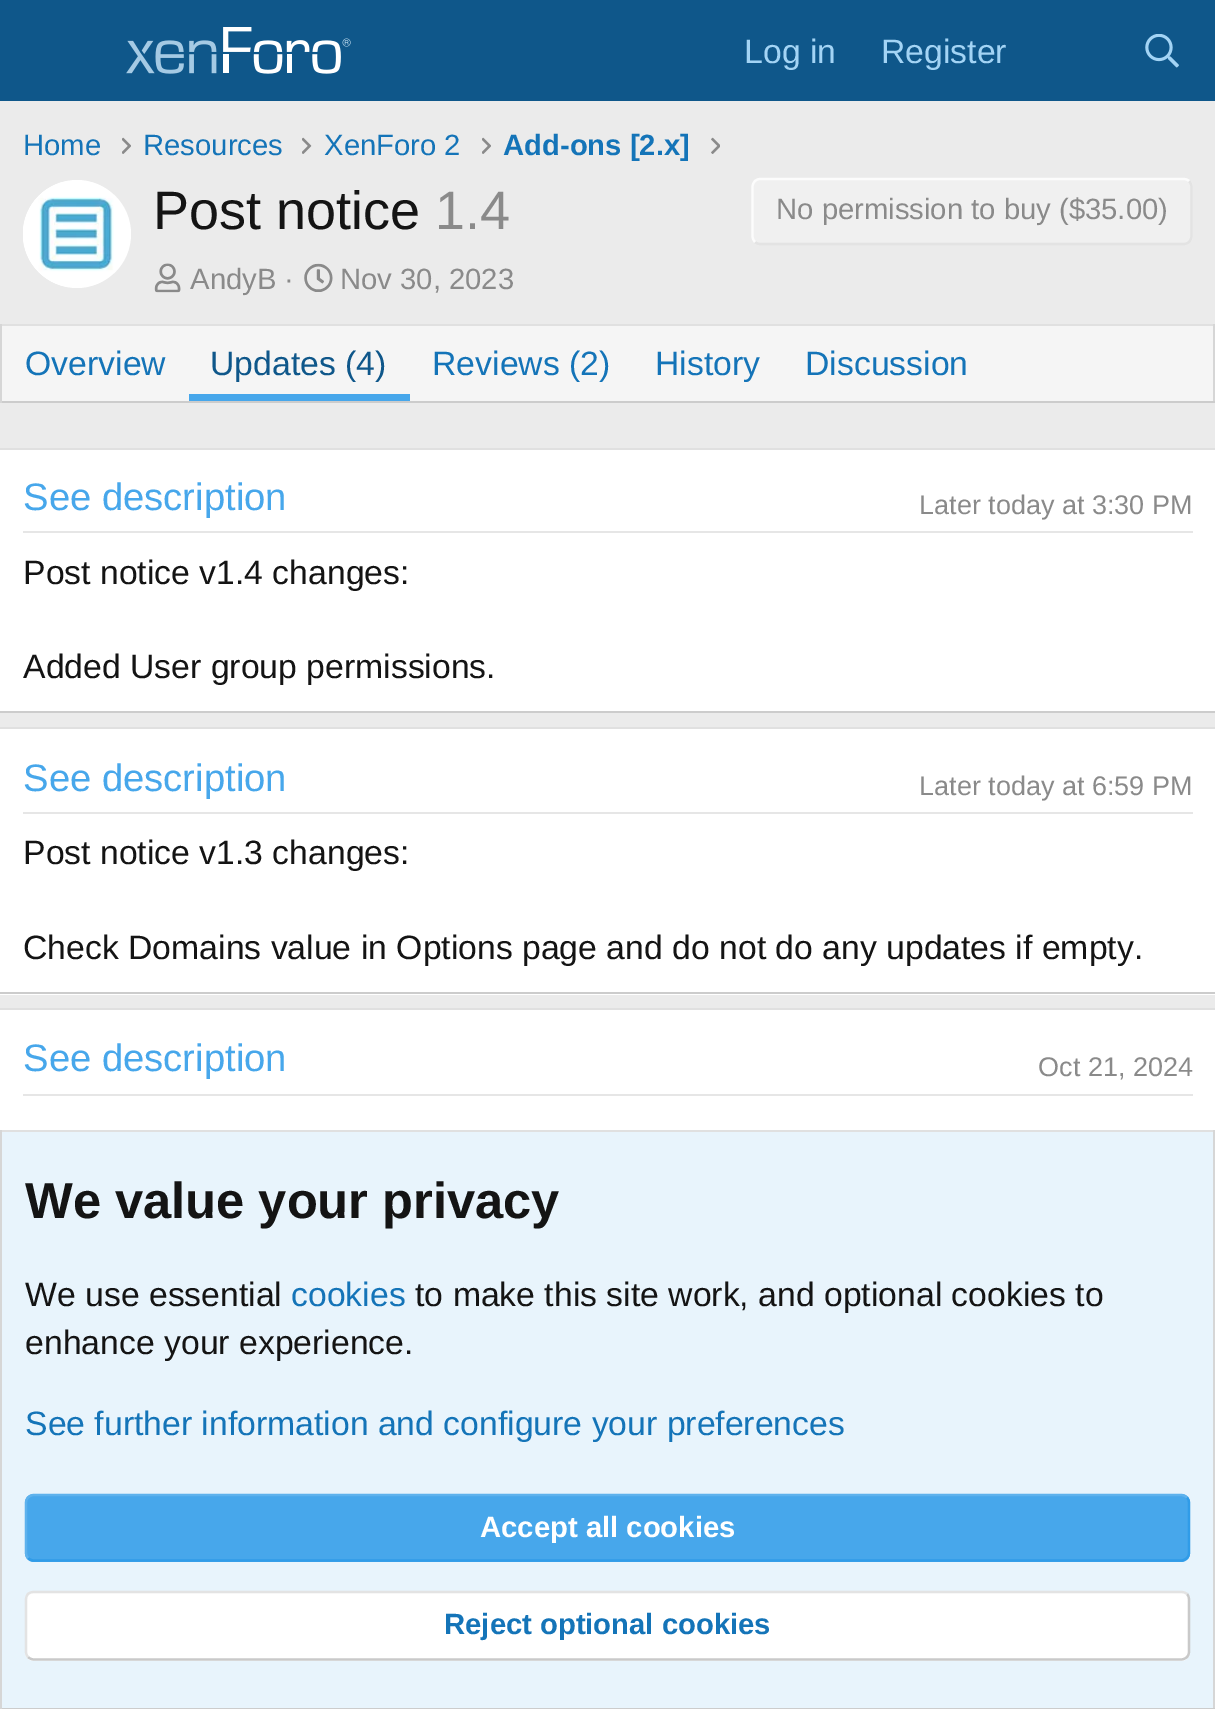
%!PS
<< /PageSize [1215 1709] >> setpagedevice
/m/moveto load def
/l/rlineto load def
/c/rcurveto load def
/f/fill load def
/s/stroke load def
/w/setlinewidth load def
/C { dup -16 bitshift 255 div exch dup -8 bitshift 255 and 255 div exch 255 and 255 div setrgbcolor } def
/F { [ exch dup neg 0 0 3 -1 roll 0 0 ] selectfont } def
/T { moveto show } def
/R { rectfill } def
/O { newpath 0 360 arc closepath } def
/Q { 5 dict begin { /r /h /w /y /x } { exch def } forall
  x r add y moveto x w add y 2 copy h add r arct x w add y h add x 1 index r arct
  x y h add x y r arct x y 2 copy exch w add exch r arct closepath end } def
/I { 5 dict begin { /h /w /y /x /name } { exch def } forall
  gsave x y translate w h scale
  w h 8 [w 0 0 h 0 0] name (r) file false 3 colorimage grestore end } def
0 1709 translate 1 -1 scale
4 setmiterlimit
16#EBEBEB C
0 0 1215 1709 R
16#0F578A C
0 0 1215 101 R
(1.rgb) 126 27 225 47 I
/LiberationSans-Regular 33.75 F
16#A3D4F5 C
(Log in) 744 63 T
(Register) 881 63 T
(2.rgb) 1145 34 34 34 I
/LiberationSans-Regular 29.25 F
16#1474B8 C
(Home) 23 155 T
(3.rgb) 122 137 9 17 I
(Resources) 143 155 T
(4.rgb) 302 137 10 17 I
(XenForo 2) 324 155 T
(3.rgb) 482 137 9 17 I
/LiberationSans-Bold 29.25 F
(Add-ons [2.x]) 503 155 T
(5.rgb) 711 137 9 17 I
16#FFFFFF C
77 234 54 O f
(6.rgb) 23 181 91 106 I
/LiberationSans-Regular 54 F
16#141414 C
(Post notice) 153 229 T
16#8A8A8A C
(1.4) 435 229 T
16#F0F0F0 C
752 178 441 67 9 Q f
16#E3E3E3 C
2.2 w
1189 181 m 1.5 1.5 2.5 3.5 2.5 6 c 0 49 l 0 2.5 -1 4.5 -2.5 6 c -1.5 1.5 -3.5 2 -5.5 2 c -423 0 l -2 0 -4 -.5 -5.5 -2 c s
16#FCFCFC C
755 242 m -1.5 -1.5 -2.5 -3.5 -2.5 -6 c 0 -49 l 0 -2.5 1 -4.5 2.5 -6 c 1.5 -1.5 3.5 -2 5.5 -2 c 423 0 l 2 0 4 .5 5.5 2 c s
/LiberationSans-Regular 29.25 F
16#8A8A8A C
(No permission to buy \($35.00\)) 776 219 T
(7.rgb) 154 263 27 30 I
(AndyB ·) 190 289 T
(8.rgb) 304 263 29 29 I
(Nov 30, 2023) 340 289 T
16#F5F5F5 C
2 326 1211 75 R
16#E0E0E0 C
0 324 1215 2 R
16#D6D6D6 C
1213 324 2 79 R
16#CCCCCC C
0 401 1215 2 R
16#D6D6D6 C
0 324 2 79 R
/LiberationSans-Regular 33.75 F
16#1474B8 C
(Overview) 25 375 T
16#47A7EB C
189 394 221 7 R
16#0F578A C
(Updates \(4\)) 210 375 T
16#1474B8 C
(Reviews \(2\)) 432 375 T
(History) 655 375 T
(Discussion) 805 375 T
16#FFFFFF C
0 450 1215 261 R
16#E0E0E0 C
0 448 1215 2 R
16#CCCCCC C
0 711 1215 2 R
16#E6E6E6 C
23 531 1170 2 R
/LiberationSans-Regular 38.25 F
16#47A7EB C
(See description) 23 510 T
/LiberationSans-Regular 27 F
16#8A8A8A C
(Later today at 3:30 PM) 919 514 T
/LiberationSans-Regular 33.75 F
16#141414 C
(Post notice v1.4 changes:) 23 584 T
(Added User group permissions.) 23 678 T
16#FFFFFF C
0 729 1215 266 R
16#E0E0E0 C
0 727 1215 2 R
16#CCCCCC C
0 992 1215 2 R
16#E6E6E6 C
23 812 1170 2 R
/LiberationSans-Regular 38.25 F
16#47A7EB C
(See description) 23 791 T
/LiberationSans-Regular 27 F
16#8A8A8A C
(Later today at 6:59 PM) 919 795 T
/LiberationSans-Regular 33.75 F
16#141414 C
(Post notice v1.3 changes:) 23 864 T
(Check Domains value in Options page and do not do any updates if empty.) 23 959 T
16#FFFFFF C
0 1010 1215 120 R
16#E0E0E0 C
0 1008 1215 2 R
16#E6E6E6 C
23 1094 1170 2 R
/LiberationSans-Regular 38.25 F
16#47A7EB C
(See description) 23 1071 T
/LiberationSans-Regular 27 F
16#8A8A8A C
(Oct 21, 2024) 1038 1076 T
16#E8F4FC C
2 1132 1211 576 R
16#E0E0E0 C
0 1130 1215 2 R
16#D6D6D6 C
1213 1130 2 579 R
16#CCCCCC C
0 1708 1215 1 R
16#D6D6D6 C
0 1130 2 579 R
/LiberationSans-Bold 50.6 F
16#141414 C
(We value your privacy) 25 1218 T
/LiberationSans-Regular 33.75 F
(We use essential) 25 1306 T
16#1474B8 C
(cookies) 291 1306 T
16#141414 C
(to make this site work, and optional cookies to) 415 1306 T
(enhance your experience.) 25 1354 T
16#1474B8 C
(See further information and configure your preferences) 25 1435 T
16#47A7EB C
25 1494 1165 68 9 Q f
16#309CE8 C
1187 1497.5 m 1.5 1.5 2 3.5 2 5.5 c 0 49.5 l 0 2 -.5 4 -2 5.5 c -1.5 1.5 -3.5 2.5 -6 2.5 c -1147 0 l -2.5 0 -4.5 -1 -6 -2.5 c s
16#5EB2ED C
28 1558 m -1.5 -1.5 -2 -3.5 -2 -5.5 c 0 -49.5 l 0 -2 .5 -4 2 -5.5 c 1.5 -1.5 3.5 -2.5 6 -2.5 c 1147 0 l 2.5 0 4.5 1 6 2.5 c s
/LiberationSans-Bold 29.25 F
16#FFFFFF C
(Accept all cookies) 480 1537 T
25 1591 1165 70 9 Q f
16#C9C9C9 C
1187 1594 m 1.5 1.5 2 3.5 2 6 c 0 51.5 l 0 2 -.5 4 -2 5.5 c -1.5 1.5 -3.5 2.5 -6 2.5 c -1147 0 l -2.5 0 -4.5 -1 -6 -2.5 c s
16#E3E3E3 C
28 1657 m -1.5 -1.5 -2 -3.5 -2 -5.5 c 0 -51.5 l 0 -2.5 .5 -4.5 2 -6 c 1.5 -1.5 3.5 -2 6 -2 c 1147 0 l 2.5 0 4.5 .5 6 2 c s
16#1474B8 C
(Reject optional cookies) 444 1634 T
showpage
